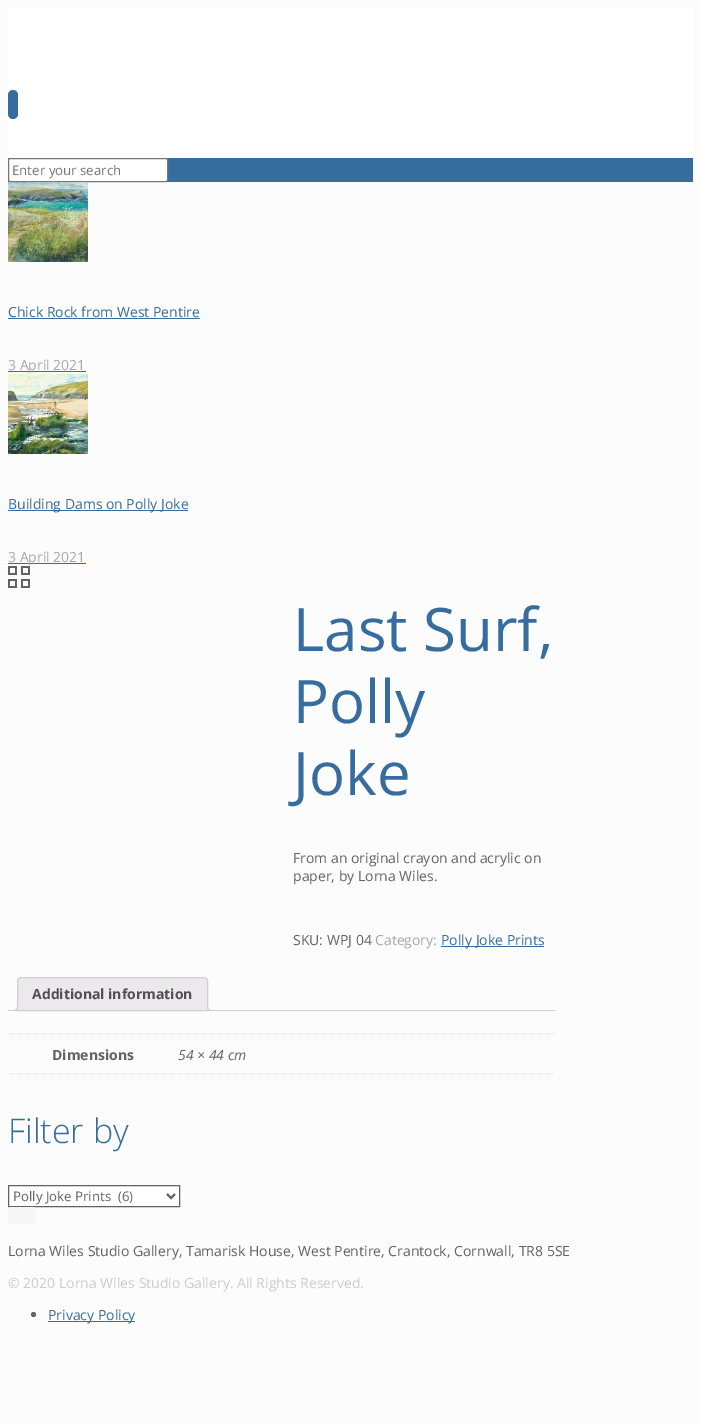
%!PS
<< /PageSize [701 1423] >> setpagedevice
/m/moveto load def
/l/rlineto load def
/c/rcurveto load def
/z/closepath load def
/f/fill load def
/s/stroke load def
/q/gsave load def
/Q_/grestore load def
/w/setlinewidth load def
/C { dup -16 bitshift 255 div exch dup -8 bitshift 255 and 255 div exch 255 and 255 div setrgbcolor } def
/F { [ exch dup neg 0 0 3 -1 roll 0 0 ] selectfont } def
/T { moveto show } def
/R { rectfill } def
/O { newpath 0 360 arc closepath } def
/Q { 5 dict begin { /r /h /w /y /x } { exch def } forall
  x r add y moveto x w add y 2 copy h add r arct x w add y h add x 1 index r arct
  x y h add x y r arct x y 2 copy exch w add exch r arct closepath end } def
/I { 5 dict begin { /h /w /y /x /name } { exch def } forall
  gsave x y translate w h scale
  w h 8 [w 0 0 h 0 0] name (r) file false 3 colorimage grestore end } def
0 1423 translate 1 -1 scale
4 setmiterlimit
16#FCFCFC C
0 0 701 1423 R
16#FFFFFF C
8 8 685 150 R
16#366C9E C
8 90 10 29 5 Q f
8 158 685 24 R
16#FFFFFF C
8.5 158.5 159 23 1.5 Q q f Q_
16#767676 C
s
/OpenSans-Regular 13.25 F
16#757575 C
(Enter your search) 12 175 T
(1.rgb) 8 182 80 80 I
/OpenSans-Regular 14 F
16#366C9E C
(Chick Rock from West Pentire) 8 317 T
8 318 192 1 R
8 371 78 1 R
16#A8A8A8 C
(3 April 2021) 8 370 T
(2.rgb) 8 374 80 80 I
16#366C9E C
8 510 180 1 R
(Building Dams on Polly Joke) 8 509 T
8 563 78 1 R
16#A8A8A8 C
(3 April 2021) 8 562 T
(3.rgb) 8 566 22 22 I
/OpenSans-Regular 60 F
16#366C9E C
(Last Surf,) 293 651 T
(Polly) 293 723 T
(Joke) 293 795 T
/OpenSans-Regular 14 F
16#626262 C
(From an original crayon and acrylic on) 293 863 T
(paper, by Lorna Wiles.) 293 881 T
(SKU: WPJ 04) 293 945 T
16#A8A8A8 C
(Category:) 375 945 T
16#366C9E C
441 946 103 1 R
(Polly Joke Prints) 441 945 T
16#EBE9EB C
21 977.5 m 183 0 l 2 0 3.5 1.5 3.5 3.5 c 0 29.5 l -190 0 l 0 -29.5 l 0 -2 1.5 -3.5 3.5 -3.5 c z q f Q_
16#D3CED2 C
s
/OpenSans-Bold 14 F
16#515151 C
(Additional information) 32 999 T
q
8 977 548 34 rectclip
16#EBE9EB C
15 1011 m 0 2 l 3.5 0 5 -1.5 5 -5 c -2 0 l -.5 1.5 -1.5 2.5 -3 3 c z f
Q_
16#D3CED2 C
13 1006 m 5 0 l 0 3.5 -1.5 5 -5 5 c z 13 1006 m 4 0 l 0 3 -1 4 -4 4 c z eofill
q
8 977 548 34 rectclip
16#EBE9EB C
205 1008 m 0 3.5 1.5 5 5 5 c 0 -2 l -1.5 -.5 -2.5 -1.5 -3 -3 c z f
Q_
207 1006 m 5 0 l 0 5 l -2.5 0 -5 -1 -5 -4 c z 208 1006 m 4 0 l 0 4 l -2 0 -4 -.5 -4 -3 c z eofill
8 1010 548 1 R
16#E3E3E3 C
[1 1] 0 setdash
8 1033.5 m 548 0 l s
10 1073.5 m 166 0 l s
16#626262 C
(Dimensions) 52 1060 T
16#E3E3E3 C
178 1073.5 m 376 0 l s
/OpenSans-Italic 14 F
16#626262 C
(54 × 44 cm) 178 1060 T
/OpenSans-Light 34 F
16#366C9E C
(Filter by) 8 1143 T
16#FFFFFF C
8.5 1185.5 m 171 0 l 0 21 l -171 0 l z q f Q_
16#626262 C
[] 0 setdash
s
2 w
167 1194 m 4 4 l 4 -4 l s
/OpenSans-Regular 13.25 F
(Polly Joke Prints  \(6\)) 13 1201 T
16#F7F7F7 C
8 1207 28 17 3 Q f
/OpenSans-Regular 14 F
16#626262 C
(Lorna Wiles Studio Gallery, Tamarisk House, West Pentire, Crantock, Cornwall, TR8 5SE) 8 1256 T
16#CCCCCC C
(© 2020 Lorna Wiles Studio Gallery. All Rights Reserved.) 8 1288 T
16#626262 C
33.5 1314.5 2.5 O f
16#366C9E C
48 1321 87 1 R
(Privacy Policy) 48 1320 T
showpage
